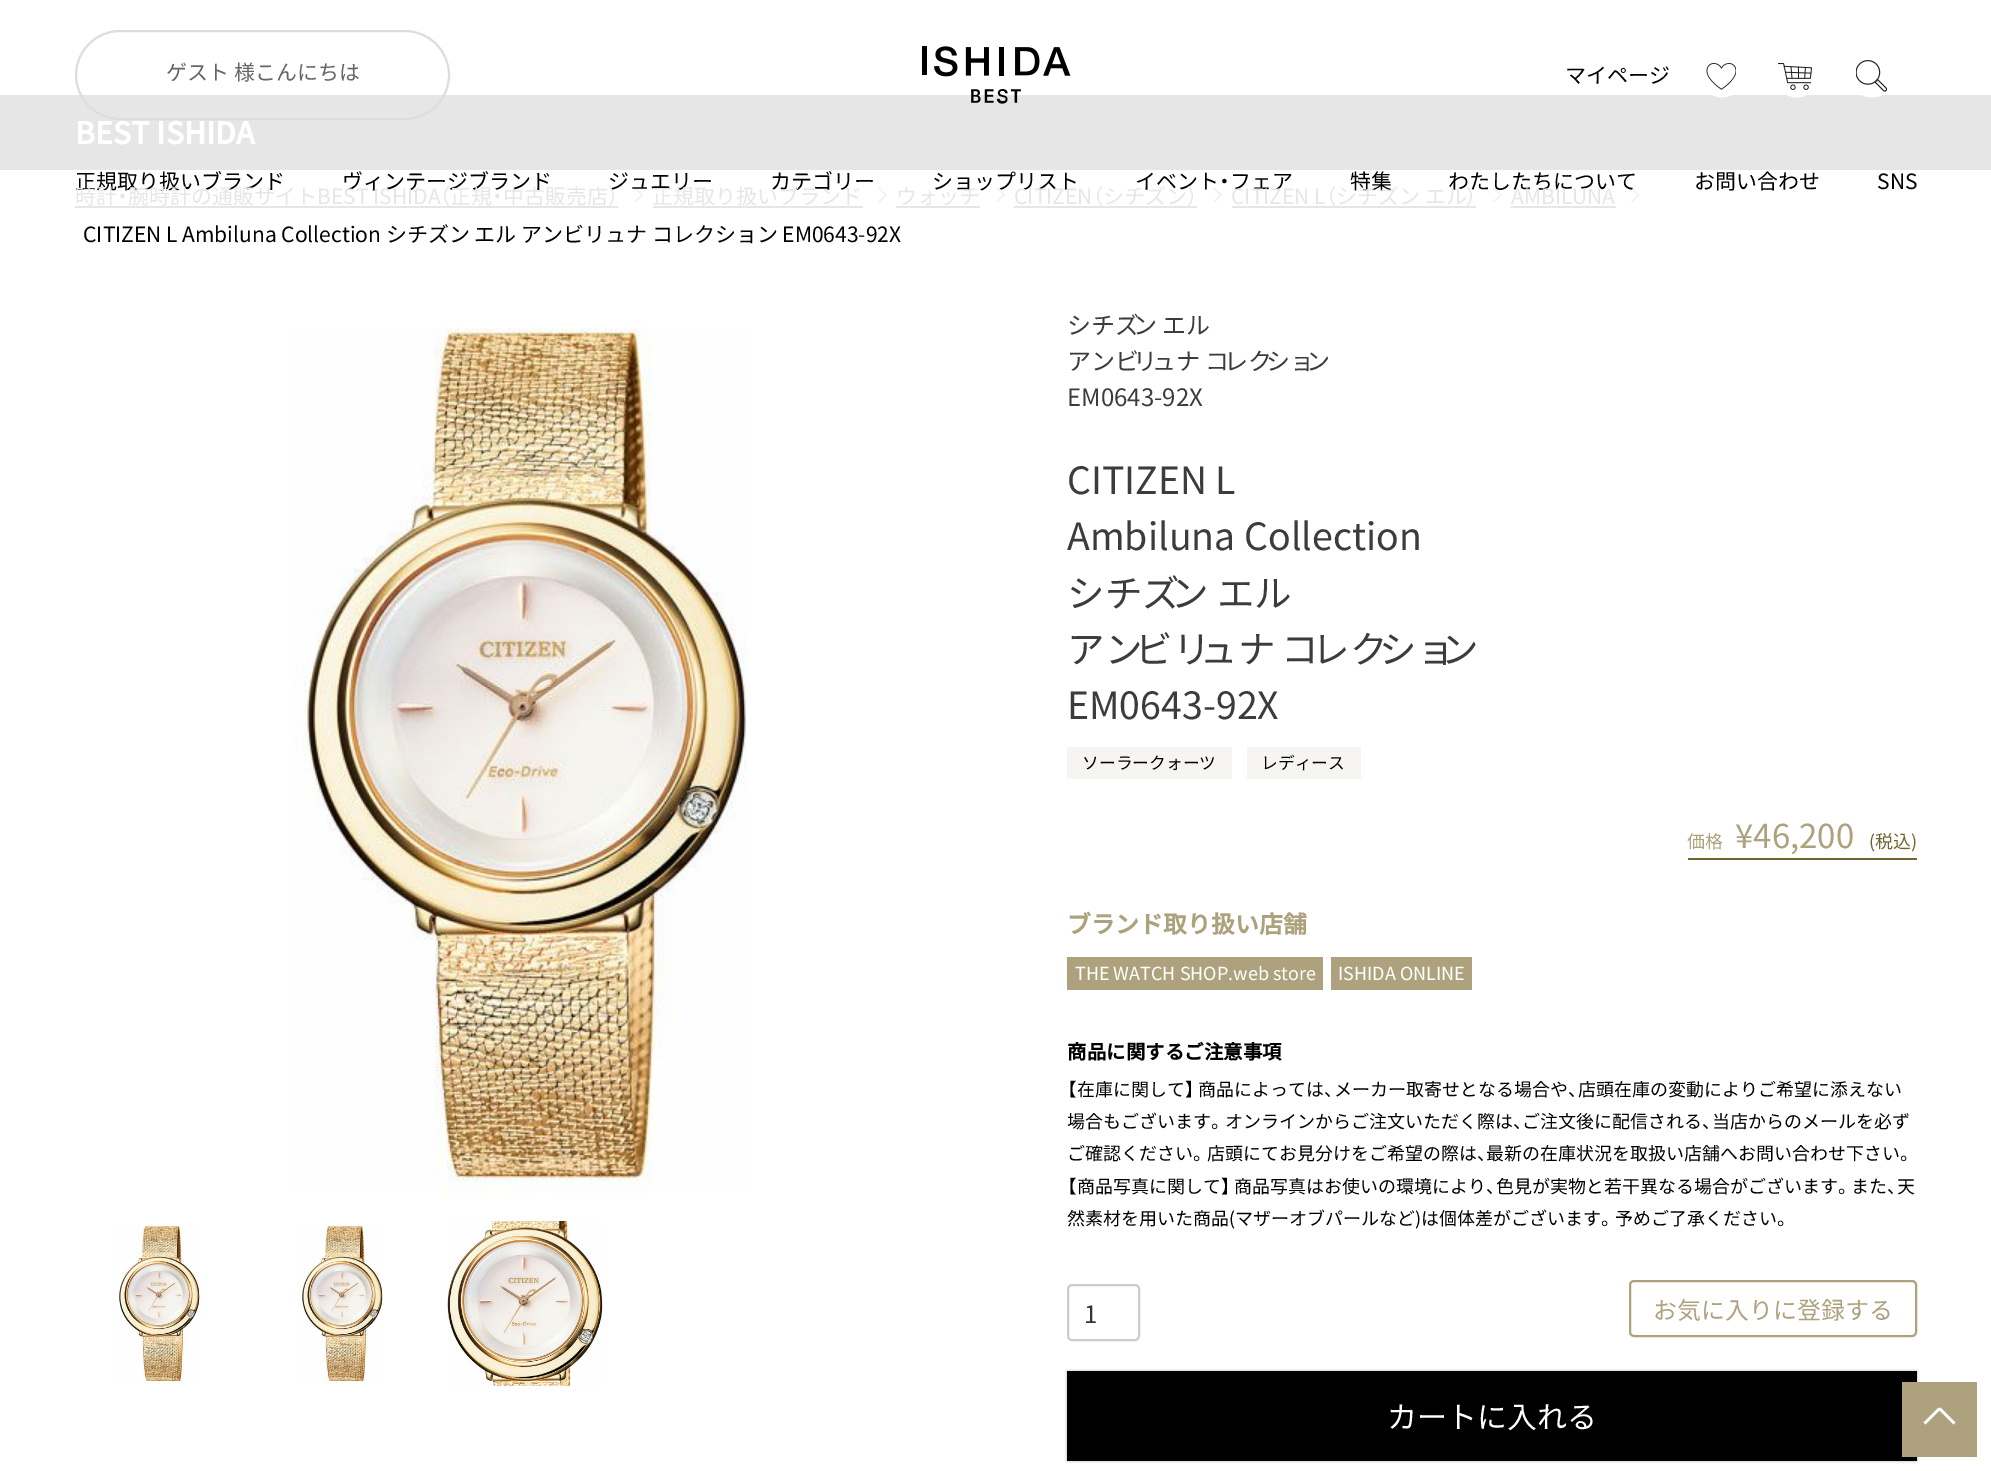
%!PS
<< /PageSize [1991 1471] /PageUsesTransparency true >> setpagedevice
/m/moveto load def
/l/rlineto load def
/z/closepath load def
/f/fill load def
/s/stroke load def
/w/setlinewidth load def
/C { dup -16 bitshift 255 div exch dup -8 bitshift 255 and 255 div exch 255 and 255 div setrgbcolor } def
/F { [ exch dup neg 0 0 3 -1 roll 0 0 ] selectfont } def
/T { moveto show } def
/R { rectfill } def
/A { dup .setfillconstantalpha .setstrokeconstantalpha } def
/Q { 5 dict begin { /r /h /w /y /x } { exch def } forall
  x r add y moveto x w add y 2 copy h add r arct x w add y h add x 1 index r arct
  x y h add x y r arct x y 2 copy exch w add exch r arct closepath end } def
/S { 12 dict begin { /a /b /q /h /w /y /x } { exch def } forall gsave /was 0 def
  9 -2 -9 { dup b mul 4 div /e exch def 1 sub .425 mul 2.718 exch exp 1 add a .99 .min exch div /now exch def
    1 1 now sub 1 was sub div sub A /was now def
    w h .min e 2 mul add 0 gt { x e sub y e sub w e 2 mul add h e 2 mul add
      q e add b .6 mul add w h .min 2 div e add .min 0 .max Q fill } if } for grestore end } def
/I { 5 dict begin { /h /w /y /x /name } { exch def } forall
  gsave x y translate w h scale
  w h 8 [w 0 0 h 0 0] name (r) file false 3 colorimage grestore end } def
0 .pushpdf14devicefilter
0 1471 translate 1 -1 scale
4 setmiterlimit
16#FFFFFF C
0 0 1991 1471 R
16#E6E6E6 C
0 95 1991 75 R
16#DDDDDD C
2 w
76 31 373 88 44 Q s
/NotoSansCJKJP-Regular 21 F
16#666666 C
(ゲスト 様こんにちは) 166 80 T
(1.rgb) 922 46 149 58 I
16#000000 C
(マイページ) 1565 83 T
(2.rgb) 1706 63 30 35 I
(3.rgb) 1778 63 34 35 I
(4.rgb) 1856 60 31 38 I
(正規取り扱いブランド) 75 189 T
(ヴィンテージブランド) 342 189 T
16#F0F0F0 C
634.5 188.5 m 1 -1 l 7.5 7.5 l -1 1 l z f
16#000000 C
(ジュエリー) 608 189 T
(カテゴリー) 770 189 T
16#F0F0F0 C
996.5 188.5 m 1 -1 l 7.5 7.5 l -1 1 l z f
16#000000 C
(ショップリスト) 932 189 T
16#F0F0F0 C
1213.5 188.5 m 1 -1 l 7.5 7.5 l -1.5 1 l z f
16#000000 C
(イベント) 1135 189 T
/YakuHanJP-Regular 21 F
(・) 1219 189 T
/NotoSansCJKJP-Regular 21 F
(フェア) 1230 189 T
(特集) 1350 189 T
16#F0F0F0 C
1493 188.5 m 1 -1 l 7.5 7.5 l -1 1 l z f
1631 188.5 m 1 -1 l 7.5 7.5 l -1 1 l z f
16#000000 C
(わたしたちについて) 1448 189 T
(お問い合わせ) 1694 189 T
(SNS) 1877 189 T
/NotoSansCJKJP-Bold 30 F
16#FFFFFF C
(BEST ISHIDA) 75 144 T
/NotoSansCJKJP-Regular 21 F
16#E6E6E6 C
(時計) 75 204 T
75 206 543 2 R
/YakuHanJP-Regular 21 F
(・) 117 204 T
/NotoSansCJKJP-Regular 21 F
(腕時計の通販サイトBEST ISHIDA) 128 204 T
/YakuHanJP-Regular 21 F
(（) 440 204 T
/NotoSansCJKJP-Regular 21 F
(正規) 450 204 T
/YakuHanJP-Regular 21 F
(・) 492 204 T
/NotoSansCJKJP-Regular 21 F
(中古販売店) 503 204 T
/YakuHanJP-Regular 21 F
(）) 608 204 T
16#F0F0F0 C
634.5 201.5 m 7.5 -7.5 l 1 1 l -7.5 7.5 l z f
/NotoSansCJKJP-Regular 21 F
16#E6E6E6 C
(正規取り扱いブランド) 652 204 T
653 206 210 2 R
16#F0F0F0 C
878.5 188.5 m 1 -1 l 7.5 7.5 l -1 1 l z f
878.5 201.5 m 7.5 -7.5 l 1 1 l -7.5 7.5 l z f
16#E6E6E6 C
(ウォッチ) 896 204 T
896 206 84 2 R
16#F0F0F0 C
996.5 201.5 m 7.5 -7.5 l 1 1 l -7.5 7.5 l z f
16#E6E6E6 C
(CITIZEN) 1014 204 T
1014 206 183 2 R
/YakuHanJP-Regular 21 F
(（) 1093 204 T
/NotoSansCJKJP-Regular 21 F
(シチズン) 1103 204 T
/YakuHanJP-Regular 21 F
(）) 1187 204 T
16#F0F0F0 C
1213.5 201.5 m 7 -7.5 l 1.5 1 l -7.5 7.5 l z f
/NotoSansCJKJP-Regular 21 F
16#E6E6E6 C
(CITIZEN L) 1231 204 T
1232 206 244 2 R
/YakuHanJP-Regular 21 F
(（) 1326 204 T
/NotoSansCJKJP-Regular 21 F
(シチズン エル) 1336 204 T
/YakuHanJP-Regular 21 F
(）) 1466 204 T
16#F0F0F0 C
1493 201.5 m 7.5 -7.5 l 1 1 l -7.5 7.5 l z f
/NotoSansCJKJP-Regular 21 F
16#E6E6E6 C
(AMBILUNA) 1511 204 T
1511 206 105 2 R
16#F0F0F0 C
1631 201.5 m 7.5 -7.5 l 1 1 l -7.5 7.5 l z f
16#000000 C
(CITIZEN L Ambiluna Collection シチズン エル アンビリュナ コレクション EM0643-92X) 83 242 T
(5.rgb) 293 327 455 866 I
(6.rgb) 117 1225 83 159 I
(7.rgb) 300 1225 83 159 I
(8.rgb) 447 1221 156 165 I
/NotoSansCJKJP-Regular 24 F
16#3C3C3C C
(シチズ) 1067 334 T
(ン エル) 1133 334 T
(アンビ) 1067 370 T
(リ) 1133 370 T
(ュナ コ) 1152 370 T
(レク) 1224 370 T
(ショ) 1266 370 T
(ン) 1306 370 T
(EM0643-92X) 1067 406 T
/NotoSansCJKJP-Regular 37.5 F
(CITIZEN L) 1067 494 T
(Ambiluna Collection) 1067 550 T
(シチズ) 1067 607 T
(ン エル) 1171 607 T
(アン) 1067 663 T
(ビリ) 1135 663 T
(ュナ) 1200 663 T
(コ) 1281 663 T
(レク) 1312 663 T
(ショ) 1379 663 T
(ン) 1441 663 T
(EM0643-92X) 1067 719 T
16#F6F5F1 C
1067 747 165 32 R
/NotoSansCJKJP-Regular 16.75 F
16#000000 C
(ソーラークォーツ) 1082 769 T
16#F6F5F1 C
1247 747 114 32 R
16#000000 C
(レディース) 1261 769 T
16#72642F C
1688 858 229 2 R
/NotoSansCJKJP-Regular 18 F
16#ADA27D C
(価格) 1687 848 T
/NotoSansCJKJP-Regular 33 F
(¥46,200) 1735 848 T
/NotoSansCJKJP-Regular 18 F
16#72642F C
(\(税込\)) 1869 848 T
/NotoSansCJKJP-Bold 24 F
16#ADA27D C
(ブランド取り扱い店舗) 1067 933 T
1067 957 256 33 R
/NotoSansCJKJP-Regular 18 F
16#FFFFFF C
(THE WATCH SHOP.web store) 1075 980 T
16#ADA27D C
1331 957 141 33 R
16#FFFFFF C
(ISHIDA ONLINE) 1338 980 T
/NotoSansCJKJP-Bold 19.5 F
16#000000 C
(商品に関するご注意事項) 1067 1059 T
/YakuHanJP-Regular 18 F
(【) 1067 1096 T
/NotoSansCJKJP-Regular 18 F
(在庫に関して) 1077 1096 T
/YakuHanJP-Regular 18 F
(】) 1185 1096 T
/NotoSansCJKJP-Regular 18 F
(商品によっては) 1198 1096 T
/YakuHanJP-Regular 18 F
(、) 1324 1096 T
/NotoSansCJKJP-Regular 18 F
(メーカー取寄せとなる場合や) 1334 1096 T
/YakuHanJP-Regular 18 F
(、) 1568 1096 T
/NotoSansCJKJP-Regular 18 F
(店頭在庫の変動によりご希望に添えない) 1578 1096 T
(場合もございます) 1067 1128 T
/YakuHanJP-Regular 18 F
(。) 1211 1128 T
/NotoSansCJKJP-Regular 18 F
(オンラインからご注文いただく際は) 1225 1128 T
/YakuHanJP-Regular 18 F
(、) 1513 1128 T
/NotoSansCJKJP-Regular 18 F
(ご注文後に配信される) 1522 1128 T
/YakuHanJP-Regular 18 F
(、) 1702 1128 T
/NotoSansCJKJP-Regular 18 F
(当店からのメールを必ず) 1712 1128 T
(ご確認ください) 1067 1160 T
/YakuHanJP-Regular 18 F
(。) 1193 1160 T
/NotoSansCJKJP-Regular 18 F
(店頭にてお見分けをご希望の際は) 1207 1160 T
/YakuHanJP-Regular 18 F
(、) 1477 1160 T
/NotoSansCJKJP-Regular 18 F
(最新の在庫状況を取扱い店舗へお問い合わせ下さい) 1486 1160 T
/YakuHanJP-Regular 18 F
(。) 1900 1160 T
(【) 1067 1193 T
/NotoSansCJKJP-Regular 18 F
(商品写真に関して) 1077 1193 T
/YakuHanJP-Regular 18 F
(】) 1221 1193 T
/NotoSansCJKJP-Regular 18 F
(商品写真はお使いの環境により) 1234 1193 T
/YakuHanJP-Regular 18 F
(、) 1486 1193 T
/NotoSansCJKJP-Regular 18 F
(色見が実物と若干異なる場合がございます) 1496 1193 T
/YakuHanJP-Regular 18 F
(。) 1838 1193 T
/NotoSansCJKJP-Regular 18 F
(また) 1851 1193 T
/YakuHanJP-Regular 18 F
(、) 1887 1193 T
/NotoSansCJKJP-Regular 18 F
(天) 1897 1193 T
(然素材を用いた商品\(マザーオブパールなど\)は個体差がございます) 1067 1225 T
/YakuHanJP-Regular 18 F
(。) 1601 1225 T
/NotoSansCJKJP-Regular 18 F
(予めご了承ください) 1615 1225 T
/YakuHanJP-Regular 18 F
(。) 1777 1225 T
16#CCCCCC C
1068 1285 71 55 4 Q s
/NotoSansCJKJP-Regular 24 F
16#333333 C
(1) 1084 1323 T
16#ADA27D C
1630 1281 286 55 4 Q s
(お気に入りに登録する) 1653 1319 T
16#B2B2B2 C
1067 1371 850 90 0 1.5 1 S
16#000000 C
1067 1371 850 90 R
/NotoSansCJKJP-Regular 30 F
16#FFFFFF C
(カートに入れる) 1387 1428 T
16#ADA27D C
1902 1382 75 75 R
16#FFFFFF C
1940.5 1407.5 m 15 15 l -2 2 l -15 -15 l z f
1938.5 1407.5 m 2 2 l -15 15 l -2 -2 l z f
.poppdf14devicefilter showpage
